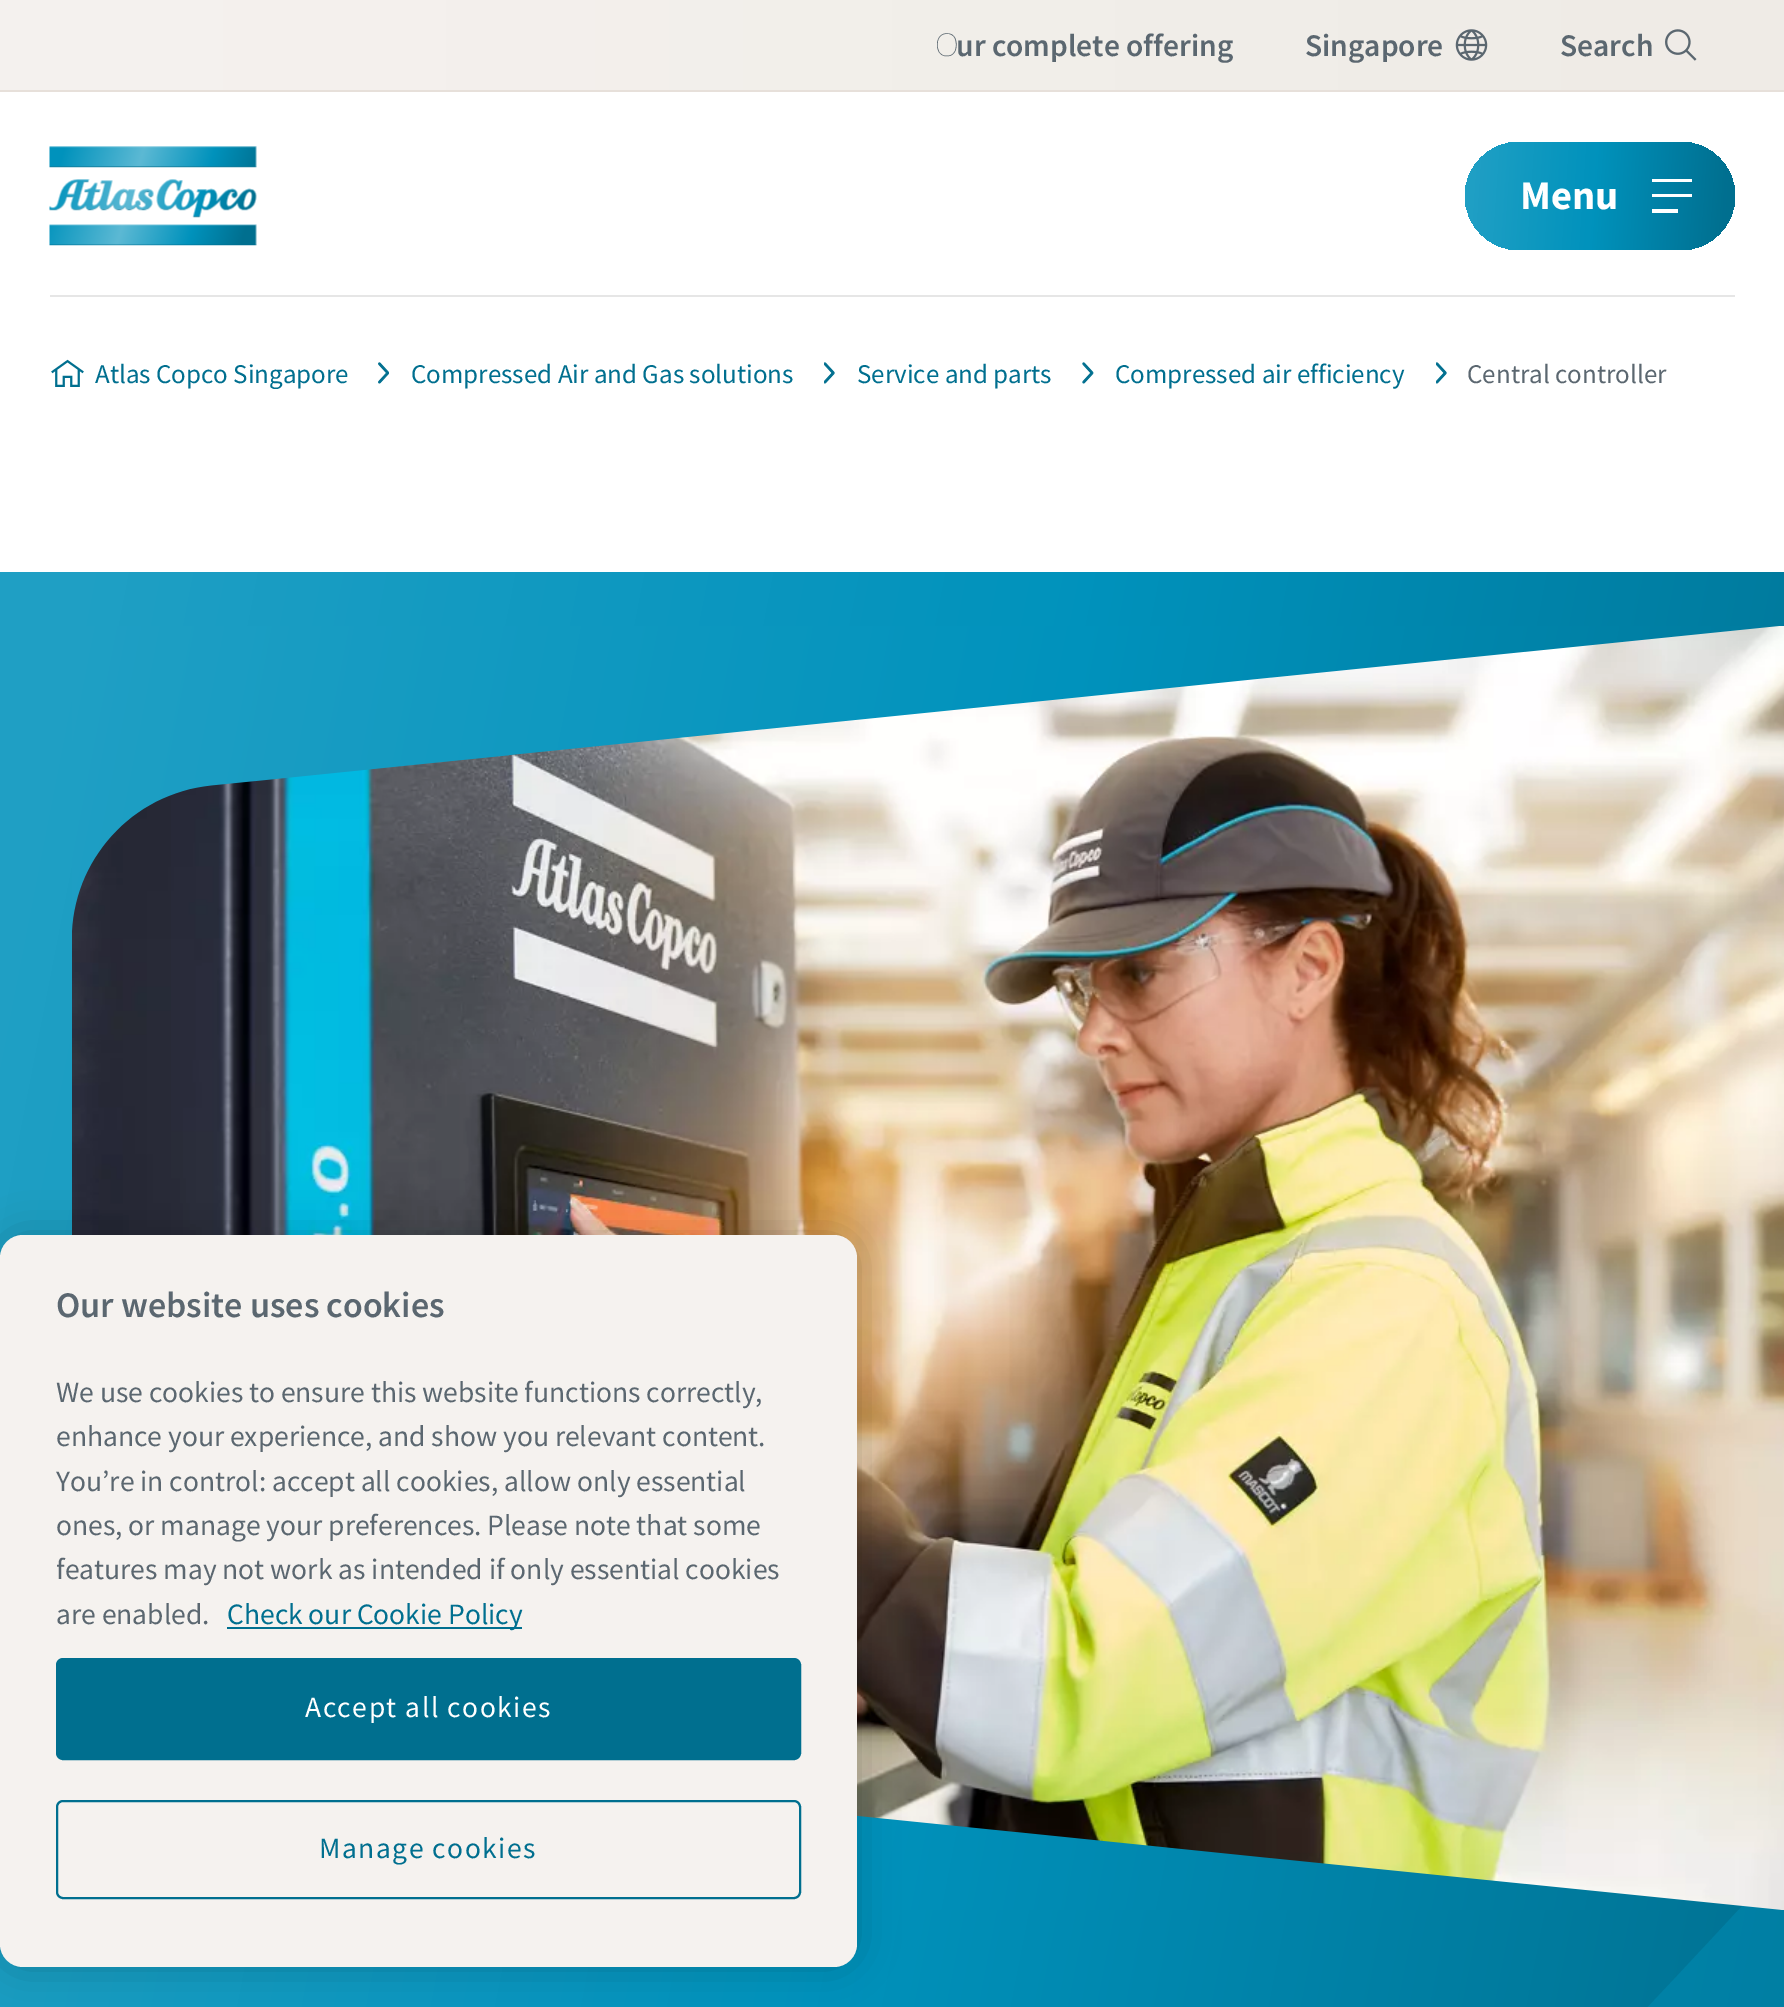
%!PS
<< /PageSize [1784 2007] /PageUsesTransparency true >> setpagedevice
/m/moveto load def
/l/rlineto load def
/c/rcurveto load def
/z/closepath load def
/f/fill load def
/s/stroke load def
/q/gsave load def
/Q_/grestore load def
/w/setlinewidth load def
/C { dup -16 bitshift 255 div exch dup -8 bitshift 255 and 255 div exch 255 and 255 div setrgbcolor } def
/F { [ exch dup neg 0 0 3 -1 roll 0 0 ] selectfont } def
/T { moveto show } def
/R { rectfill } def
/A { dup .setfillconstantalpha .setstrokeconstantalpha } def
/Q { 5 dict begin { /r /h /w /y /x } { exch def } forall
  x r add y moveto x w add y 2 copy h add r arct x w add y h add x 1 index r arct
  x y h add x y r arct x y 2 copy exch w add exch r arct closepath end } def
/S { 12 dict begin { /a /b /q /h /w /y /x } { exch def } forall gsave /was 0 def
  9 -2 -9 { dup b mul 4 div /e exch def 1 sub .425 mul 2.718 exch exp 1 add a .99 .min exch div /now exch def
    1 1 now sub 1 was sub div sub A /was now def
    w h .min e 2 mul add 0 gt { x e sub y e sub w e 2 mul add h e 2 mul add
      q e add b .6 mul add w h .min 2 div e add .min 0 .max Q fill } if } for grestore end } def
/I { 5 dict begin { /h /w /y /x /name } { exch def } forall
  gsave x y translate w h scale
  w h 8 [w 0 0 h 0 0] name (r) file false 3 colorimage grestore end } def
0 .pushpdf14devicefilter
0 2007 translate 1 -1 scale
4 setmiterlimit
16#FFFFFF C
0 0 1784 2007 R
q 0 0 m 1784 0 l 0 90 l -1784 0 l z clip newpath
<< /ShadingType 2 /ColorSpace /DeviceRGB /Coords [0 45 1784 45] /Extend [true true] /Function << /FunctionType 2 /Domain [0 1] /C0 [.961 .949 .937] /C1 [.937 .922 .902] /N 1 >> >> shfill Q_
16#E7E0DA C
0 90 1784 2 R
/NotoSans-Thin 31.5 F
16#5B6770 C
(O) 935 56 T
/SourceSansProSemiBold-SemiBold 31.5 F
(ur complete offering) 956 56 T
(Singapore) 1305 56 T
(1.rgb) 1455 29 33 32 I
(Search) 1560 56 T
(2.rgb) 1665 29 32 32 I
(3.rgb) 49 146 208 100 I
q 1465 142 270 108 54 Q clip newpath
<< /ShadingType 2 /ColorSpace /DeviceRGB /Coords [1462 186 1738 205] /Extend [true true] /Function << /FunctionType 3 /Domain [0 1] /Functions [<< /FunctionType 2 /Domain [0 1] /C0 [.122 .624 .769] /C1 [.122 .624 .769] /N 1 >> << /FunctionType 2 /Domain [0 1] /C0 [.122 .624 .769] /C1 [0 .573 .737] /N 1 >> << /FunctionType 2 /Domain [0 1] /C0 [0 .573 .737] /C1 [0 .435 .561] /N 1 >> << /FunctionType 2 /Domain [0 1] /C0 [0 .435 .561] /C1 [0 .435 .561] /N 1 >>] /Bounds [.04 .48 .96] /Encode [0 1 0 1 0 1 0 1] >> >> shfill Q_
/SourceSansPro-Bold 40.5 F
16#FFFFFF C
(Menu) 1520 209 T
1692 179 m -40 0 l 0 3 l 40 0 l z 1678 209 m -26 0 l 0 4 l 26 0 l z 1692 194 m -40 0 l 0 3 l 40 0 l z f
16#E6E6E6 C
50 295 1685 2 R
(4.rgb) 51 359 33 28 I
/SourceSansPro-Regular 27 F
16#006F8F C
(Atlas Copco Singapore) 95 383 T
(5.rgb) 378 362 11 22 I
(Compressed Air and Gas solutions) 411 383 T
(6.rgb) 824 362 11 22 I
(Service and parts) 857 383 T
(7.rgb) 1082 362 12 22 I
(Compressed air efficiency) 1115 383 T
(6.rgb) 1436 362 11 22 I
16#5B6770 C
(Central controller) 1467 383 T
q 0 572 m 1784 0 l 0 1435 l -1784 0 l z clip newpath
<< /ShadingType 2 /ColorSpace /DeviceRGB /Coords [-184 1518 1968 1936] /Extend [true true] /Function << /FunctionType 3 /Domain [0 1] /Functions [<< /FunctionType 2 /Domain [0 1] /C0 [.122 .624 .769] /C1 [.122 .624 .769] /N 1 >> << /FunctionType 2 /Domain [0 1] /C0 [.122 .624 .769] /C1 [0 .573 .737] /N 1 >> << /FunctionType 2 /Domain [0 1] /C0 [0 .573 .737] /C1 [0 .435 .561] /N 1 >> << /FunctionType 2 /Domain [0 1] /C0 [0 .435 .561] /C1 [0 .435 .561] /N 1 >>] /Bounds [.04 .49 .97] /Encode [0 1 0 1 0 1 0 1] >> >> shfill Q_
0.4 A
16#0092BC C
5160 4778 m 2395 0 l 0 -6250 l -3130 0 l -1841 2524 -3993 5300 -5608 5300 c -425 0 -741 -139 -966 -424 c -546 -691 -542 -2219 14 -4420 c 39 -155 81 -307 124 -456 c -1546 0 l 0 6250 l 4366 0 l 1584 -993 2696 -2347 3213 -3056 c -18 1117 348 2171 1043 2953 c 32 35 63 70 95 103 c z eofill
1 A
(8.rgb) 72 626 1712 1284 I
16#000000 C
0 1235 857 732 23 20 .2 S
16#F5F2EF C
0 1235 857 732 23 Q f
/SourceSansProSemiBold-SemiBold 36 F
16#5B6770 C
(Our website uses cookies) 56 1317 T
/SourceSansPro-Regular 29.5 F
(We use cookies to ensure this website functions correctly,) 56 1402 T
(enhance your experience, and show you relevant content.) 56 1446 T
(You’re in control: accept all cookies, allow only essential) 56 1491 T
(ones, or manage your preferences. Please note that some) 56 1535 T
(features may not work as intended if only essential cookies) 56 1579 T
(are enabled.) 56 1624 T
16#006F8F C
227 1627 295 2 R
(Check our Cookie Policy) 227 1624 T
57 1659 743 100 6 Q q f Q_
2 w
s
16#FFFFFF C
305 1717 m 1.5 0 (Accept all cookies) ashow
16#006F8F C
57 1801 743 97 6 Q s
319 1858 m 1.5 0 (Manage cookies) ashow
.poppdf14devicefilter showpage
